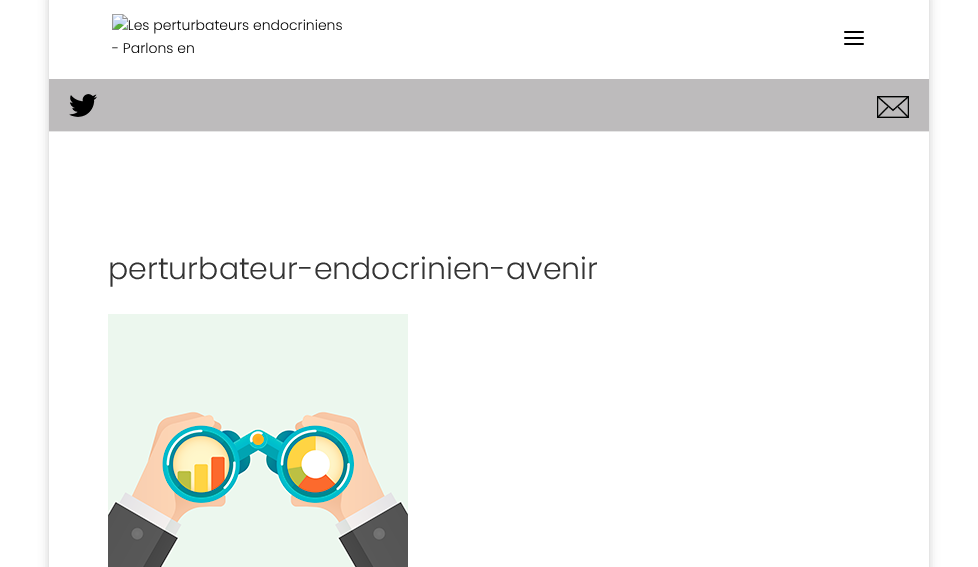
%!PS
<< /PageSize [978 567] /PageUsesTransparency true >> setpagedevice
/m/moveto load def
/l/rlineto load def
/z/closepath load def
/q/gsave load def
/Q_/grestore load def
/C { dup -16 bitshift 255 div exch dup -8 bitshift 255 and 255 div exch 255 and 255 div setrgbcolor } def
/F { [ exch dup neg 0 0 3 -1 roll 0 0 ] selectfont } def
/T { moveto show } def
/R { rectfill } def
/A { dup .setfillconstantalpha .setstrokeconstantalpha } def
/Q { 5 dict begin { /r /h /w /y /x } { exch def } forall
  x r add y moveto x w add y 2 copy h add r arct x w add y h add x 1 index r arct
  x y h add x y r arct x y 2 copy exch w add exch r arct closepath end } def
/S { 12 dict begin { /a /b /q /h /w /y /x } { exch def } forall gsave /was 0 def
  9 -2 -9 { dup b mul 4 div /e exch def 1 sub .425 mul 2.718 exch exp 1 add a .99 .min exch div /now exch def
    1 1 now sub 1 was sub div sub A /was now def
    w h .min e 2 mul add 0 gt { x e sub y e sub w e 2 mul add h e 2 mul add
      q e add b .6 mul add w h .min 2 div e add .min 0 .max Q fill } if } for grestore end } def
/I { 5 dict begin { /h /w /y /x /name } { exch def } forall
  gsave x y translate w h scale
  w h 8 [w 0 0 h 0 0] name (r) file false 3 colorimage grestore end } def
0 .pushpdf14devicefilter
0 567 translate 1 -1 scale
4 setmiterlimit
16#FFFFFF C
0 0 978 567 R
q
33 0 m 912 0 l 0 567 l -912 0 l z 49 -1 m 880 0 l 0 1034 l -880 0 l z eoclip newpath
16#000000 C
49 -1 880 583 0 5 .2 S
Q_
16#E6E6E6 C
49 131 880 1 R
(1.rgb) 112 14 230 39 I
(2.rgb) 844 31 20 14 I
16#BDBBBC C
49 79 880 52 R
(3.rgb) 69 94 28 23 I
(4.rgb) 877 96 32 22 I
/Poppins-Light 30 F
16#333333 C
(perturbateur-endocrinien-avenir) 108 279 T
(5.rgb) 108 314 300 253 I
.poppdf14devicefilter showpage
